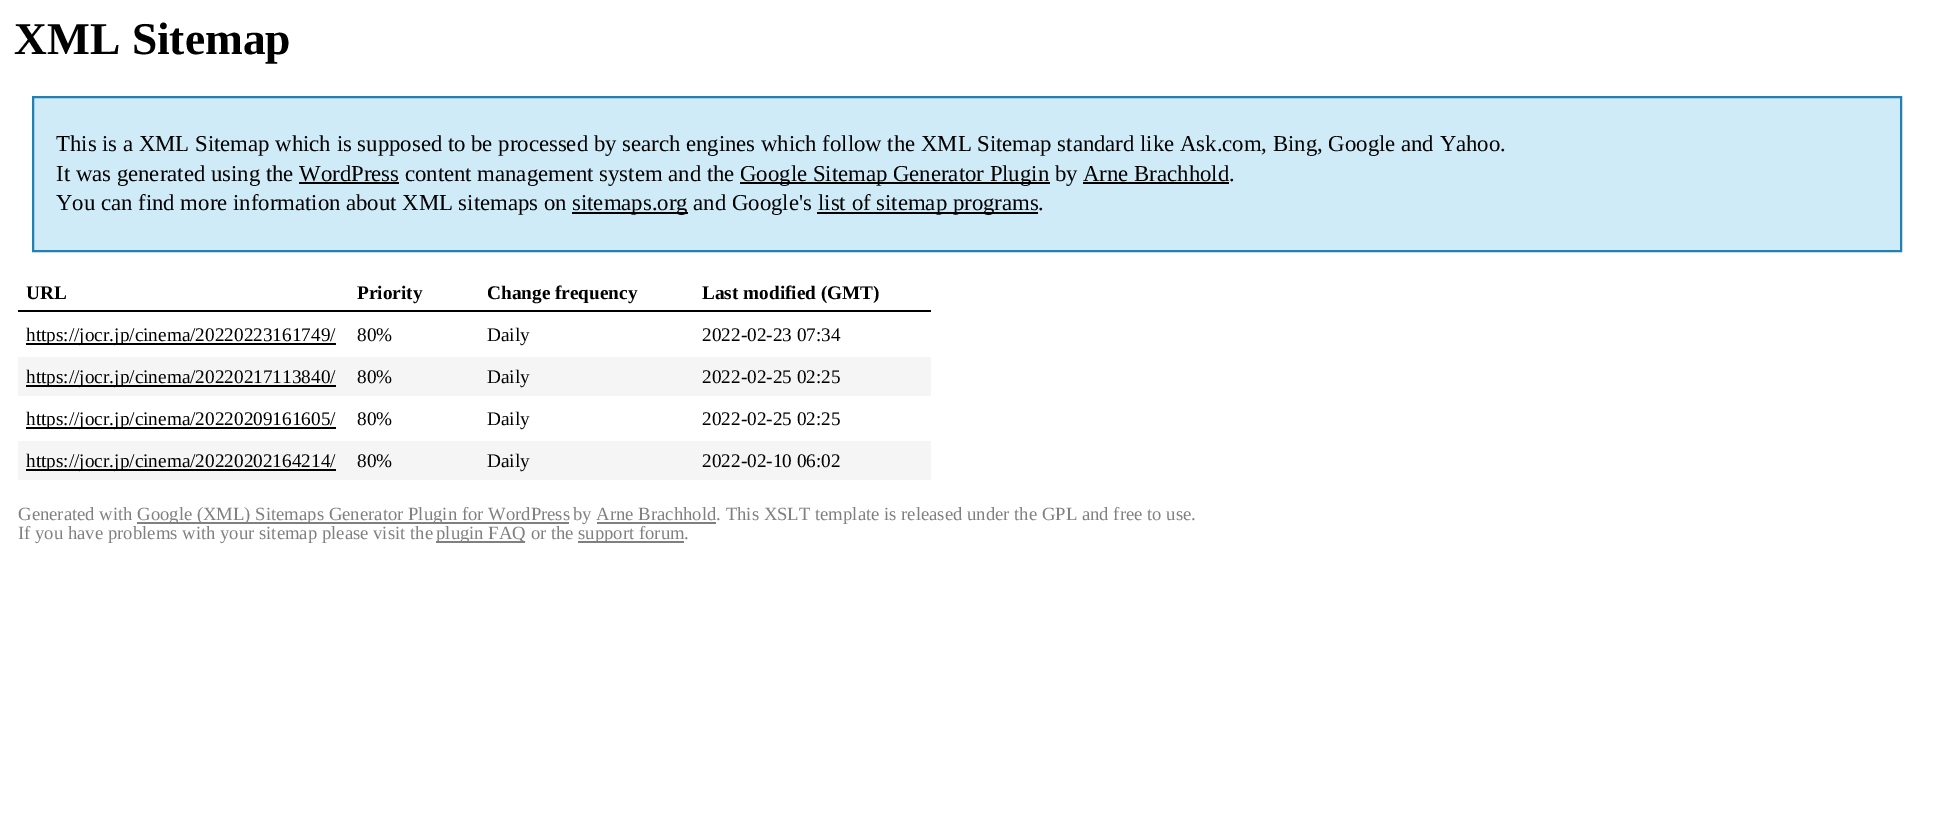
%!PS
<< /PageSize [1933 823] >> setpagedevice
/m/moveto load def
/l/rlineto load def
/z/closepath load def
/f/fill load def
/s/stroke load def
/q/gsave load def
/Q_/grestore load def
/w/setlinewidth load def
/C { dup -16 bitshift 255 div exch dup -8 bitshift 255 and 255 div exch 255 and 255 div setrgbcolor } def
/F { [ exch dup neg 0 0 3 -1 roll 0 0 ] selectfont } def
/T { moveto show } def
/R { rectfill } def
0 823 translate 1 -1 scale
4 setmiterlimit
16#FFFFFF C
0 0 1933 823 R
/LiberationSerif-Bold 45.5 F
16#000000 C
(XML Sitemap) 14 54 T
16#CFEBF7 C
33 97 m 1868 0 l 0 154 l -1868 0 l z q f Q_
16#2580B2 C
2 w
s
/LiberationSerif-Regular 22.75 F
16#000000 C
(This is a XML Sitemap which is supposed to be processed by search engines which follow the XML Sitemap standard like Ask.com, Bing, Google and Yahoo.) 56 151 T
(It was generated using the WordPress content management system and the) 56 181 T
740 182 310 2 R
(Google Sitemap Generator Plugin by Arne Brachhold.) 740 181 T
299 182 100 2 R
1083 182 146 2 R
(You can find more information about XML sitemaps on) 56 210 T
572 212 116 2 R
(sitemaps.org and Google's) 572 210 T
817 212 221 2 R
(list of sitemap programs.) 818 210 T
18 310 913 2 R
/LiberationSerif-Bold 19.25 F
(URL) 26 299 T
(Priority) 357 299 T
(Change frequency) 487 299 T
(Last modified \(GMT\)) 702 299 T
26 343 310 2 R
/LiberationSerif-Regular 19.25 F
(https://jocr.jp/cinema/20220223161749/) 26 341 T
(80%) 357 341 T
(Daily) 487 341 T
(2022-02-23 07:34) 702 341 T
16#F5F5F5 C
18 357 913 39 R
16#000000 C
26 385 310 2 R
(https://jocr.jp/cinema/20220217113840/) 26 383 T
(80%) 357 383 T
(Daily) 487 383 T
(2022-02-25 02:25) 702 383 T
26 427 310 2 R
(https://jocr.jp/cinema/20220209161605/) 26 425 T
(80%) 357 425 T
(Daily) 487 425 T
(2022-02-25 02:25) 702 425 T
16#F5F5F5 C
18 441 913 39 R
16#000000 C
26 469 310 2 R
(https://jocr.jp/cinema/20220202164214/) 26 467 T
(80%) 357 467 T
(Daily) 487 467 T
(2022-02-10 06:02) 702 467 T
/LiberationSerif-Regular 18.7 F
16#808080 C
(Generated with) 18 520 T
137 522 432 2 R
(Google \(XML\) Sitemaps Generator Plugin for WordPress) 137 520 T
(by Arne Brachhold. This XSLT template is released under the GPL and free to use.) 573 520 T
597 522 119 2 R
(If you have problems with your sitemap please visit the) 18 539 T
436 541 89 2 R
(plugin FAQ or the) 436 539 T
578 541 106 2 R
(support forum.) 578 539 T
showpage
